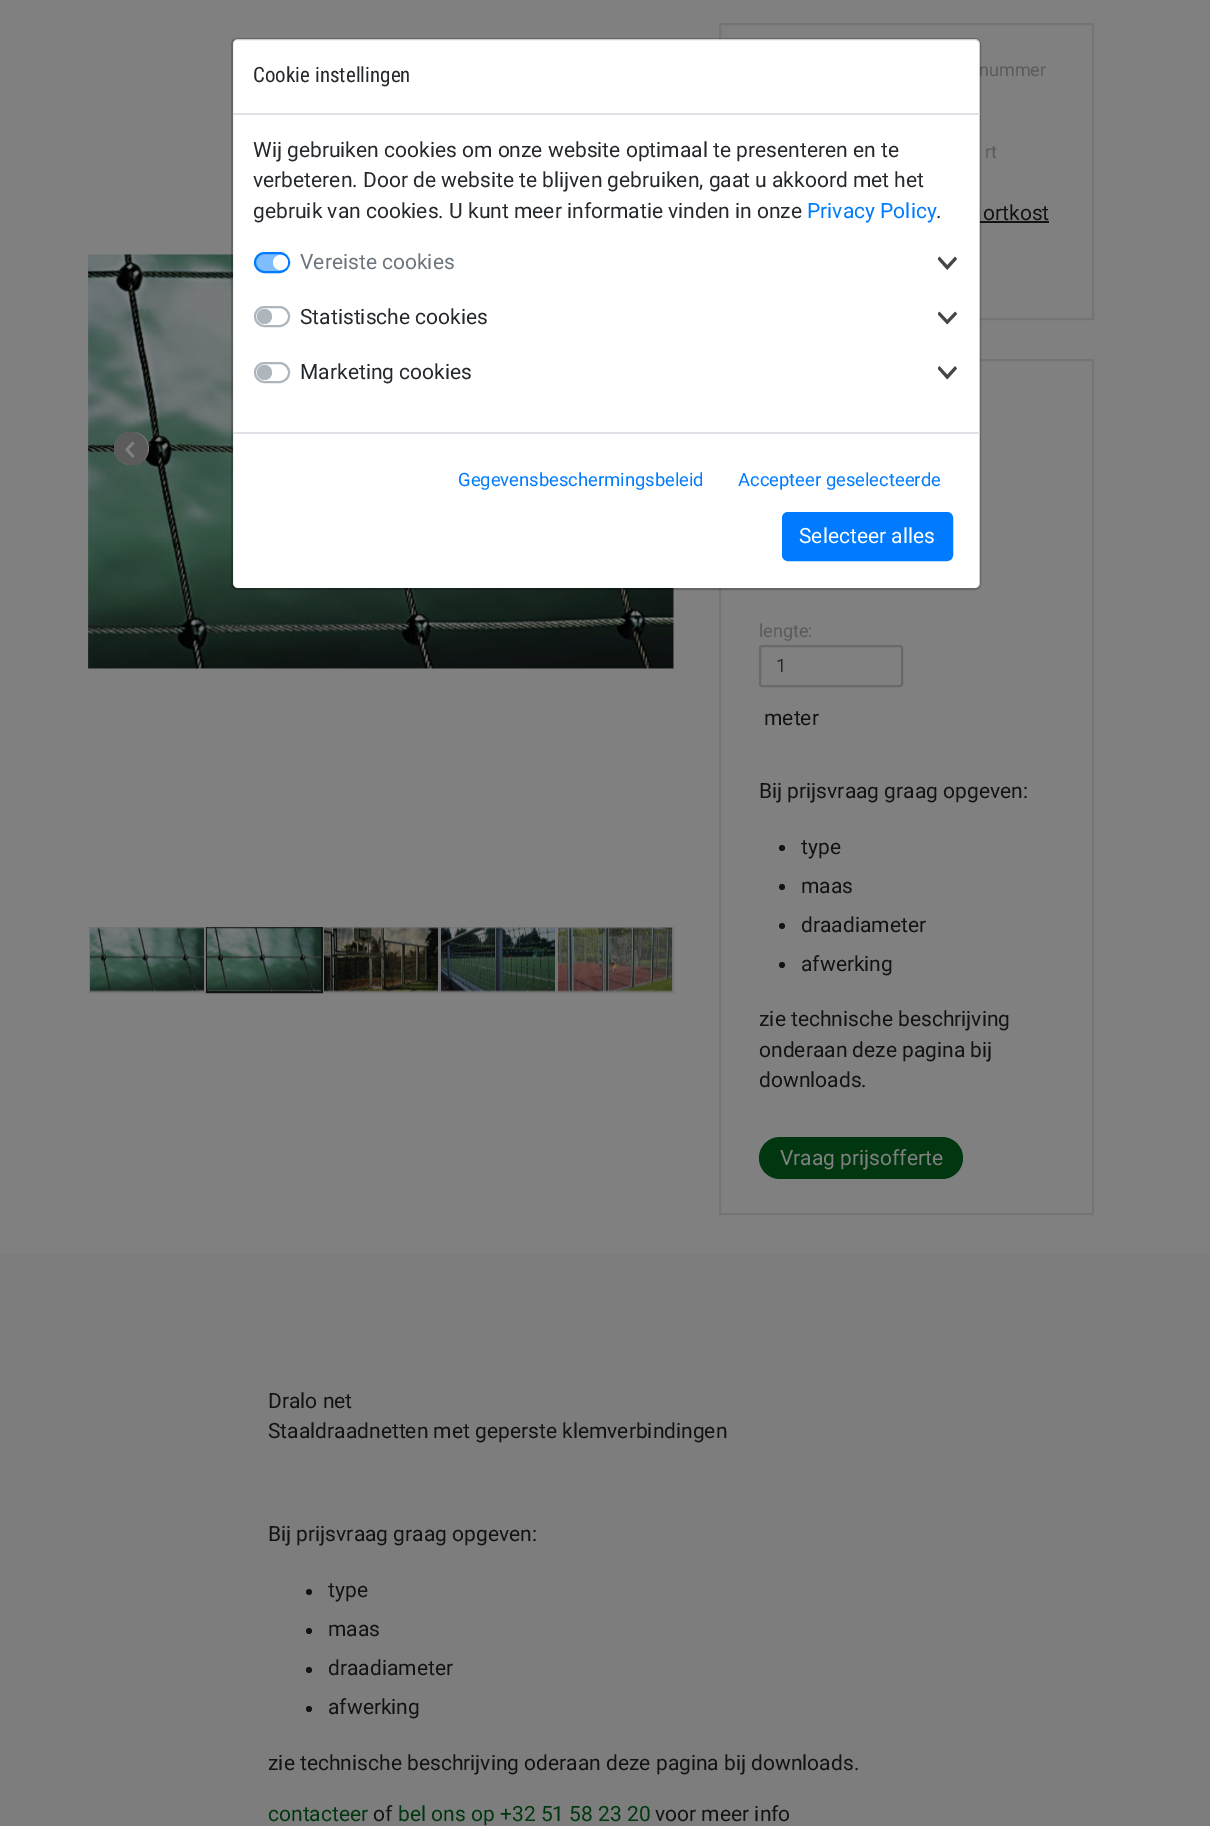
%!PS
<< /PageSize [1210 1826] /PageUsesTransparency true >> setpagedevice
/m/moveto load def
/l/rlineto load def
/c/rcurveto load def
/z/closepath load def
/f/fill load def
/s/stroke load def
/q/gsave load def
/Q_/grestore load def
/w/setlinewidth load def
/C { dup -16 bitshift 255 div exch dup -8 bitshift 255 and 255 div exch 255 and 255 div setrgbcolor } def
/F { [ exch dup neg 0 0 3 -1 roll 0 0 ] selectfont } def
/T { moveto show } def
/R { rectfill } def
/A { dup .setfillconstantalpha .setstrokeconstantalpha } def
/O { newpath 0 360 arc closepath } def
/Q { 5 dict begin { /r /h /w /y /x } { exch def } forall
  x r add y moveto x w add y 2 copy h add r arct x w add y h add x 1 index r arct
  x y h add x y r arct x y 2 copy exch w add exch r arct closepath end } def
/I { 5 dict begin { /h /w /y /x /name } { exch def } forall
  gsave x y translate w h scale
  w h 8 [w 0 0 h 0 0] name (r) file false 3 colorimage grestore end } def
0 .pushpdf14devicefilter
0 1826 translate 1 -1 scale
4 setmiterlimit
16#808080 C
0 0 1210 1826 R
(4.rgb) 88 254 586 415 I
16#747474 C
2 w
720 24 373 295 rectstroke
720 360 373 854 rectstroke
16#FFFFFF C
233 39 747 549 5 Q f
/Roboto-Regular 18 F
16#5B5B5B C
(nummer) 979 76 T
16#111315 C
980 221 69 2 R
0.2 A
16#000000 C
232 39 748 550 5 Q s
1 A
16#DEE2E6 C
233 113 747 2 R
/RobotoCondensed-Regular 21 F
16#25282C C
(Cookie instellingen) 253 82 T
/Roboto-Regular 21 F
(Wij gebruiken cookies om onze website optimaal te presenteren en te) 253 157 T
(verbeteren. Door de website te blijven gebruiken, gaat u akkoord met het) 253 187 T
(gebruik van cookies. U kunt meer informatie vinden in onze) 253 218 T
16#007BFF C
(Privacy Policy) 807 218 T
16#25282C C
(.) 936 218 T
16#80BDFF C
255 253 34 19 9.5 Q q f Q_
16#007BFF C
s
16#6C757D C
(Vereiste cookies) 300 269 T
16#FFFFFF C
280.5 262.5 7.5 O f
(1.rgb) 938 256 19 14 I
16#ADB5BD C
255 307 34 19 9.5 Q s
16#25282C C
(Statistische cookies) 300 324 T
16#ADB5BD C
264.5 316.5 7.5 O f
(2.rgb) 938 311 19 14 I
255 363 34 19 9.5 Q s
16#25282C C
(Marketing cookies) 300 379 T
16#ADB5BD C
264.5 372.5 7.5 O f
(3.rgb) 938 366 19 14 I
16#DEE2E6 C
233 432 747 2 R
/Roboto-Regular 18.4 F
16#007BFF C
(Gegevensbeschermingsbeleid) 458 486 T
(Accepteer geselecteerde) 738 486 T
783 513 169 47 5 Q q f Q_
s
/Roboto-Regular 21 F
16#FFFFFF C
(Selecteer alles) 799 543 T
16#787878 C
114 432 35 33 16.5 Q f
16#5B5B5B C
131 432 m -21 0 -24 31 -.5 33 c 3.5 .5 8.5 -.5 11.5 -3 c 8.5 -7 7.5 -21 -1.5 -27 c -3 -2 -6 -3 -9.5 -3 c z f
16#808080 C
2.6 w
133.5 442.5 m -6.5 7 l 6.5 7.5 l s
16#747474 C
2 w
90 928 115 64 rectstroke
(5.rgb) 90 927 114 65 I
16#111315 C
207 928 115 64 rectstroke
(6.rgb) 207 927 114 65 I
16#747474 C
324 928 115 64 rectstroke
(7.rgb) 324 927 114 65 I
441 928 115 64 rectstroke
(8.rgb) 441 927 114 65 I
558 928 115 64 rectstroke
(9.rgb) 558 927 114 65 I
/Roboto-Regular 18 F
16#5B5B5B C
(rt) 985 158 T
/Roboto-Regular 21 F
16#111315 C
(ortkost) 983 220 T
/Roboto-Regular 18 F
16#5B5B5B C
(lengte:) 759 637 T
16#676A6D C
760 646 142 40 2 Q s
/Roboto-Regular 18.4 F
16#25282C C
(1) 776 672 T
/Roboto-Regular 21 F
16#111315 C
(meter) 764 725 T
(Bij prijsvraag graag opgeven:) 759 798 T
782 848 3 O f
(type) 801 854 T
782 887 3 O f
(maas) 801 893 T
782 926 3 O f
(draadiameter) 801 932 T
782 965 3 O f
(afwerking) 801 971 T
(zie technische beschrijving) 759 1026 T
(onderaan deze pagina bij) 759 1057 T
(downloads.) 759 1087 T
16#003710 C
759 1137 204 42 21 Q f
16#808080 C
(Vraag prijsofferte) 780 1165 T
16#7D7D7D C
0 1254 1210 572 R
16#111315 C
(Dralo net) 268 1408 T
(Staaldraadnetten met geperste klemverbindingen) 268 1438 T
(Bij prijsvraag graag opgeven:) 268 1541 T
309 1592 3 O f
(type) 328 1597 T
309 1631 3 O f
(maas) 328 1636 T
309 1670 3 O f
(draadiameter) 328 1675 T
309 1709 3 O f
(afwerking) 328 1714 T
(zie technische beschrijving oderaan deze pagina bij downloads.) 268 1770 T
16#003710 C
(contacteer) 268 1821 T
16#111315 C
(of) 373 1821 T
16#003710 C
(bel ons op +32 51 58 23 20) 398 1821 T
16#111315 C
(voor meer info) 655 1821 T
.poppdf14devicefilter showpage
